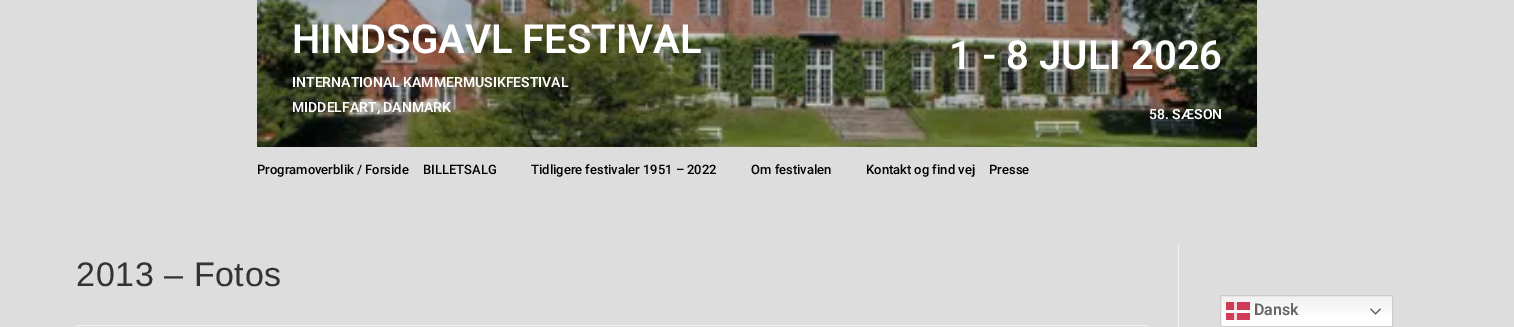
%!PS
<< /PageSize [1514 327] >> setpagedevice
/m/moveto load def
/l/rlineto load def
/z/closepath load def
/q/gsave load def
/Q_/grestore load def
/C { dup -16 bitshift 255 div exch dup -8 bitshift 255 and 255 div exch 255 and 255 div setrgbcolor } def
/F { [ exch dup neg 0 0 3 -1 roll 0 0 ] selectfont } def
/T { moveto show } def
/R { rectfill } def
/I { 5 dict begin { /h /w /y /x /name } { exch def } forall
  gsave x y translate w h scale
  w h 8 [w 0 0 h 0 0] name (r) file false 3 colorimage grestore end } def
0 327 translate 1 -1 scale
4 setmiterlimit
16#DDDDDD C
0 0 1514 327 R
(1.rgb) 257 0 1000 147 I
/Roboto-SemiBold 40 F
16#FFFFFF C
(HINDSGAVL FESTIVAL) 292 53 T
/Roboto-SemiBold 14 F
(INTERNATIONAL KAMMERMUSIKFESTIVAL) 292 87 T
(MIDDELFART, DANMARK) 292 112 T
/Roboto-SemiBold 40 F
(1 - 8 JULI 2026) 949 69 T
/Roboto-SemiBold 14 F
(58. SÆSON) 1149 119 T
/Roboto-Medium 13 F
16#000000 C
(Programoverblik / Forside) 257 174 T
(BILLETSALG) 423 174 T
(Tidligere festivaler 1951 – 2022) 531 174 T
(Om festivalen) 751 174 T
(Kontakt og find vej) 866 174 T
(Presse) 989 174 T
16#F1F1F1 C
1178 244 1 83 R
76 325 1072 1 R
/LiberationSans-Regular 34 F
16#333333 C
76 286 m .6 0 (2013 – Fotos) ashow
q 1221 296 m 171 0 l 0 30 l -171 0 l z clip newpath
<< /ShadingType 2 /ColorSpace /DeviceRGB /Coords [1307 295 1307 327] /Extend [true true] /Function << /FunctionType 3 /Domain [0 1] /Functions [<< /FunctionType 2 /Domain [0 1] /C0 [.937 .937 .937] /C1 [1 1 1] /N 1 >> << /FunctionType 2 /Domain [0 1] /C0 [1 1 1] /C1 [1 1 1] /N 1 >>] /Bounds [.7] /Encode [0 1 0 1] >> >> shfill Q_
q 1226 302 m 24 0 l 0 18 l -24 0 l z clip newpath
<< /ShadingType 2 /ColorSpace /DeviceRGB /Coords [1307 295 1307 327] /Extend [true true] /Function << /FunctionType 3 /Domain [0 1] /Functions [<< /FunctionType 2 /Domain [0 1] /C0 [.808 .224 .337] /C1 [.82 .239 .349] /N 1 >> << /FunctionType 2 /Domain [0 1] /C0 [.82 .239 .349] /C1 [.82 .239 .349] /N 1 >>] /Bounds [.7] /Encode [0 1 0 1] >> >> shfill Q_
16#CCCCCC C
1220.5 295.5 172 31 rectstroke
16#F6D8DE C
1234 302 3 18 R
/Roboto-SemiBold 16 F
16#666666 C
(Dansk) 1254 315 T
(2.rgb) 1370 308 11 7 I
16#FEFEFE C
1226 310 24 3 R
showpage
